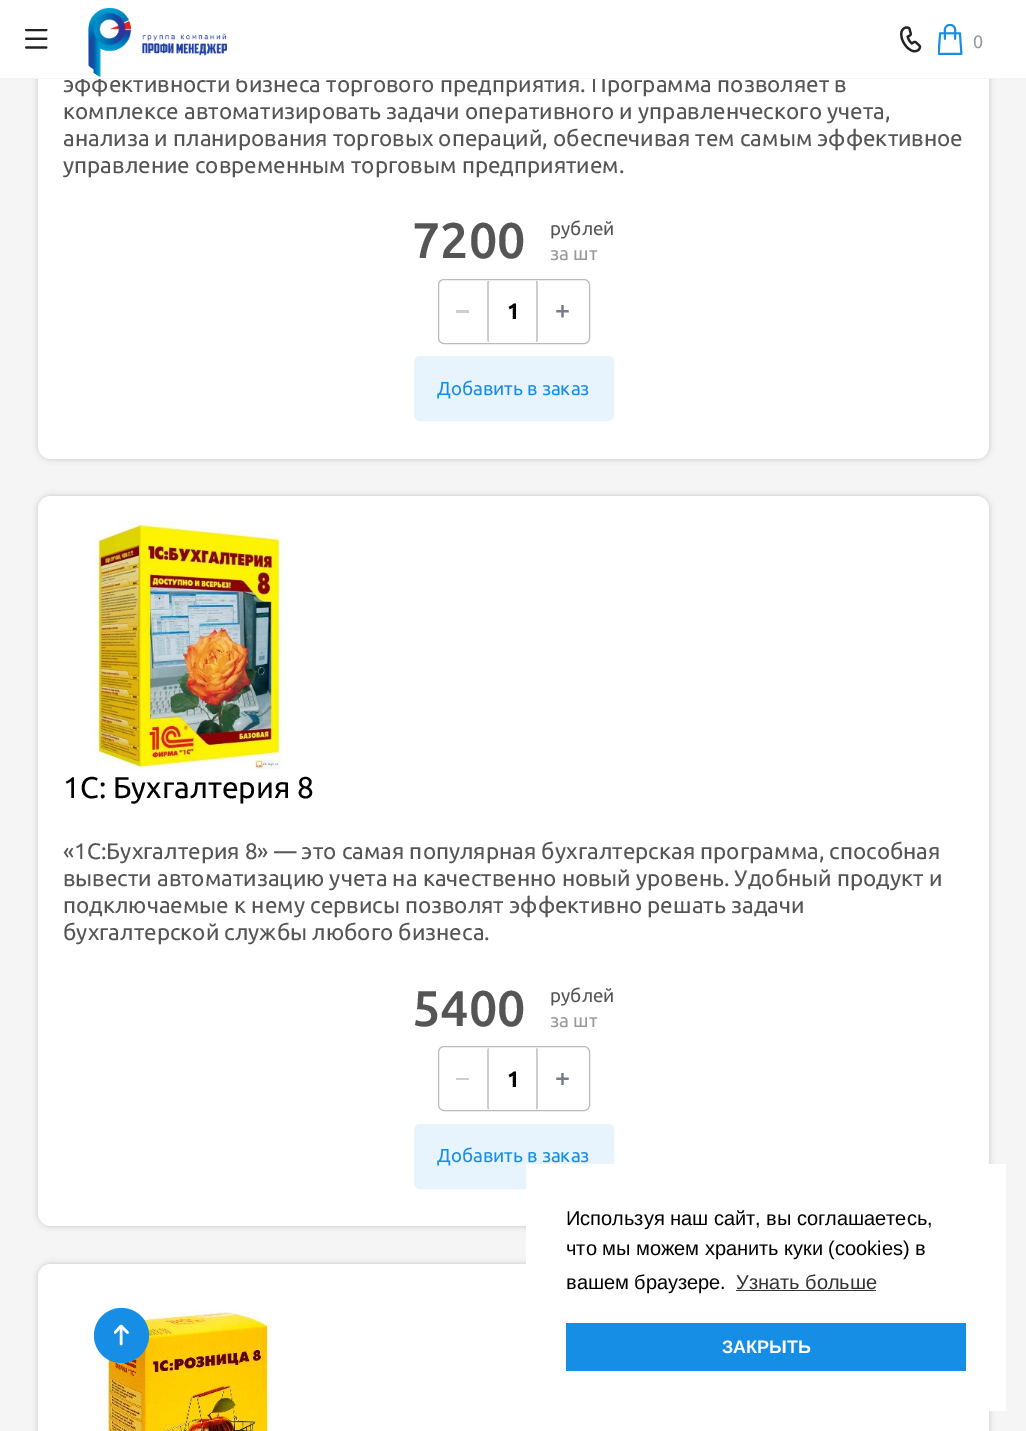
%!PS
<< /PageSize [1026 1431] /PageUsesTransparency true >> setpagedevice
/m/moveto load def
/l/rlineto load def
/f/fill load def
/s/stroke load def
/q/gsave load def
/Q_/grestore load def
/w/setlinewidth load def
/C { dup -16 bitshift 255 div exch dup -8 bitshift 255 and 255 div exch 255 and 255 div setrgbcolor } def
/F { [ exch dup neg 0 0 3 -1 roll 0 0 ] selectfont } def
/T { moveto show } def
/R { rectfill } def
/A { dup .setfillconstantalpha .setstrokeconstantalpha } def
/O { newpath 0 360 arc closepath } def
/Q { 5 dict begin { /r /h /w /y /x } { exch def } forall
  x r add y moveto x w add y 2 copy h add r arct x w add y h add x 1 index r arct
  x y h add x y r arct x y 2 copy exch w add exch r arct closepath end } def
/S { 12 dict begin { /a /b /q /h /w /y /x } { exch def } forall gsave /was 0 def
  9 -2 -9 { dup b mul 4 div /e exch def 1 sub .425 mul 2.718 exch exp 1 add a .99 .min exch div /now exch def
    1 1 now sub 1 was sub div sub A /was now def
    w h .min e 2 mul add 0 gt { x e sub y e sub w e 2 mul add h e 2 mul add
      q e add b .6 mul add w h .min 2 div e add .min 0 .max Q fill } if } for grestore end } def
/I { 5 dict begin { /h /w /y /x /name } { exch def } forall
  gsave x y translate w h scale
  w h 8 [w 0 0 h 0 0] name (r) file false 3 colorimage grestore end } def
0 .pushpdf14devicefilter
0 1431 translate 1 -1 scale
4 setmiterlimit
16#F5F5F5 C
0 0 1026 1431 R
16#000000 C
38 -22 951 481 13 3 .2 S
16#FFFFFF C
38 -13 951 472 13 Q f
/Ubuntu-Regular 22.5 F
16#555555 C
(эффективности бизнеса торгового предприятия. Программа позволяет в) 63 92 T
16#FFFFFF C
0 0 1026 78 R
16#F5F5F5 C
33 78 961 1 R
(1.rgb) 25 29 23 20 I
(2.rgb) 88 7 139 71 I
(3.rgb) 900 26 22 27 I
(4.rgb) 938 24 25 31 I
/Ubuntu-Regular 18 F
16#999999 C
(0) 973 48 T
/Ubuntu-Regular 22.5 F
16#555555 C
(комплексе автоматизировать задачи оперативного и управленческого учета,) 63 119 T
(анализа и планирования торговых операций, обеспечивая тем самым эффективное) 63 146 T
(управление современным торговым предприятием.) 63 173 T
/Ubuntu-Medium 50 F
(7200) 412 258 T
/Ubuntu-Regular 18.75 F
(рублей) 550 235 T
16#999999 C
(за шт) 550 260 T
16#BBBBBB C
438.5 279.5 151 64 5.5 Q s
16#CBCED2 C
456 310 13 3 R
16#BBBBBB C
1.2 w
536.5 281 m .5 1.5 l 0 57.5 l -.5 1.5 l 488.5 341.5 m -.5 -1.5 l 0 -57.5 l .5 -1.5 l s
/Ubuntu-Bold 22.5 F
16#000000 C
(1) 507 319 T
(5.rgb) 556 305 13 13 I
16#E8F4FD C
414.5 356.5 199 64 5.5 Q q f Q_
1 w
s
/Ubuntu-Regular 18.75 F
16#168EE5 C
(Добавить в заказ) 437 395 T
16#000000 C
38 496 951 730 13 3 .2 S
16#FFFFFF C
38 496 951 730 13 Q f
(6.rgb) 92 521 191 250 I
/Ubuntu-Regular 30 F
16#000000 C
(1С: Бухгалтерия 8) 63 798 T
/Ubuntu-Regular 22.5 F
16#555555 C
(«1C:Бухгалтерия 8» — это самая популярная бухгалтерская программа, способная) 63 859 T
(вывести автоматизацию учета на качественно новый уровень. Удобный продукт и) 63 886 T
(подключаемые к нему сервисы позволят эффективно решать задачи) 63 913 T
(бухгалтерской службы любого бизнеса.) 63 940 T
/Ubuntu-Medium 50 F
(5400) 412 1026 T
/Ubuntu-Regular 18.75 F
(рублей) 550 1002 T
16#999999 C
(за шт) 550 1027 T
16#BBBBBB C
438.5 1046.5 151 64 5.5 Q s
16#CBCED2 C
456 1078 13 2 R
16#BBBBBB C
1.2 w
536.5 1048.5 m .5 1.5 l 0 57.5 l -.5 1.5 l 488.5 1109 m -.5 -1.5 l 0 -57.5 l .5 -1.5 l s
/Ubuntu-Bold 22.5 F
16#000000 C
(1) 507 1087 T
(7.rgb) 556 1073 13 12 I
16#E8F4FD C
414.5 1124.5 199 64 5.5 Q q f Q_
1 w
s
/Ubuntu-Regular 18.75 F
16#168EE5 C
(Добавить в заказ) 437 1162 T
16#000000 C
38 1264 951 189 13 3 .2 S
16#FFFFFF C
38 1264 951 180 13 Q f
(8.rgb) 103 1311 170 120 I
16#168EE5 C
121.5 1335.5 27.5 O f
16#FFFFFF C
2.5 w
1 setlinecap
1 setlinejoin
121 1326 m 0 18 l s
q
114 1325 15 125 rectclip
115 1332.5 m 6 -6.5 l 6.5 6.5 l s
Q_
526 1164 480 247 R
/LiberationSans-Regular 20 F
16#000000 C
(Используя наш сайт, вы соглашаетесь,) 566 1225 T
(что мы можем хранить куки \(cookies\) в) 566 1255 T
(вашем браузере.) 566 1289 T
16#333333 C
(Узнать больше) 736 1289 T
736 1290 140 1 R
16#168EE5 C
566 1323 400 48 R
/LiberationSans-Bold 18 F
16#FFFFFF C
(ЗАКРЫТЬ) 722 1353 T
.poppdf14devicefilter showpage
